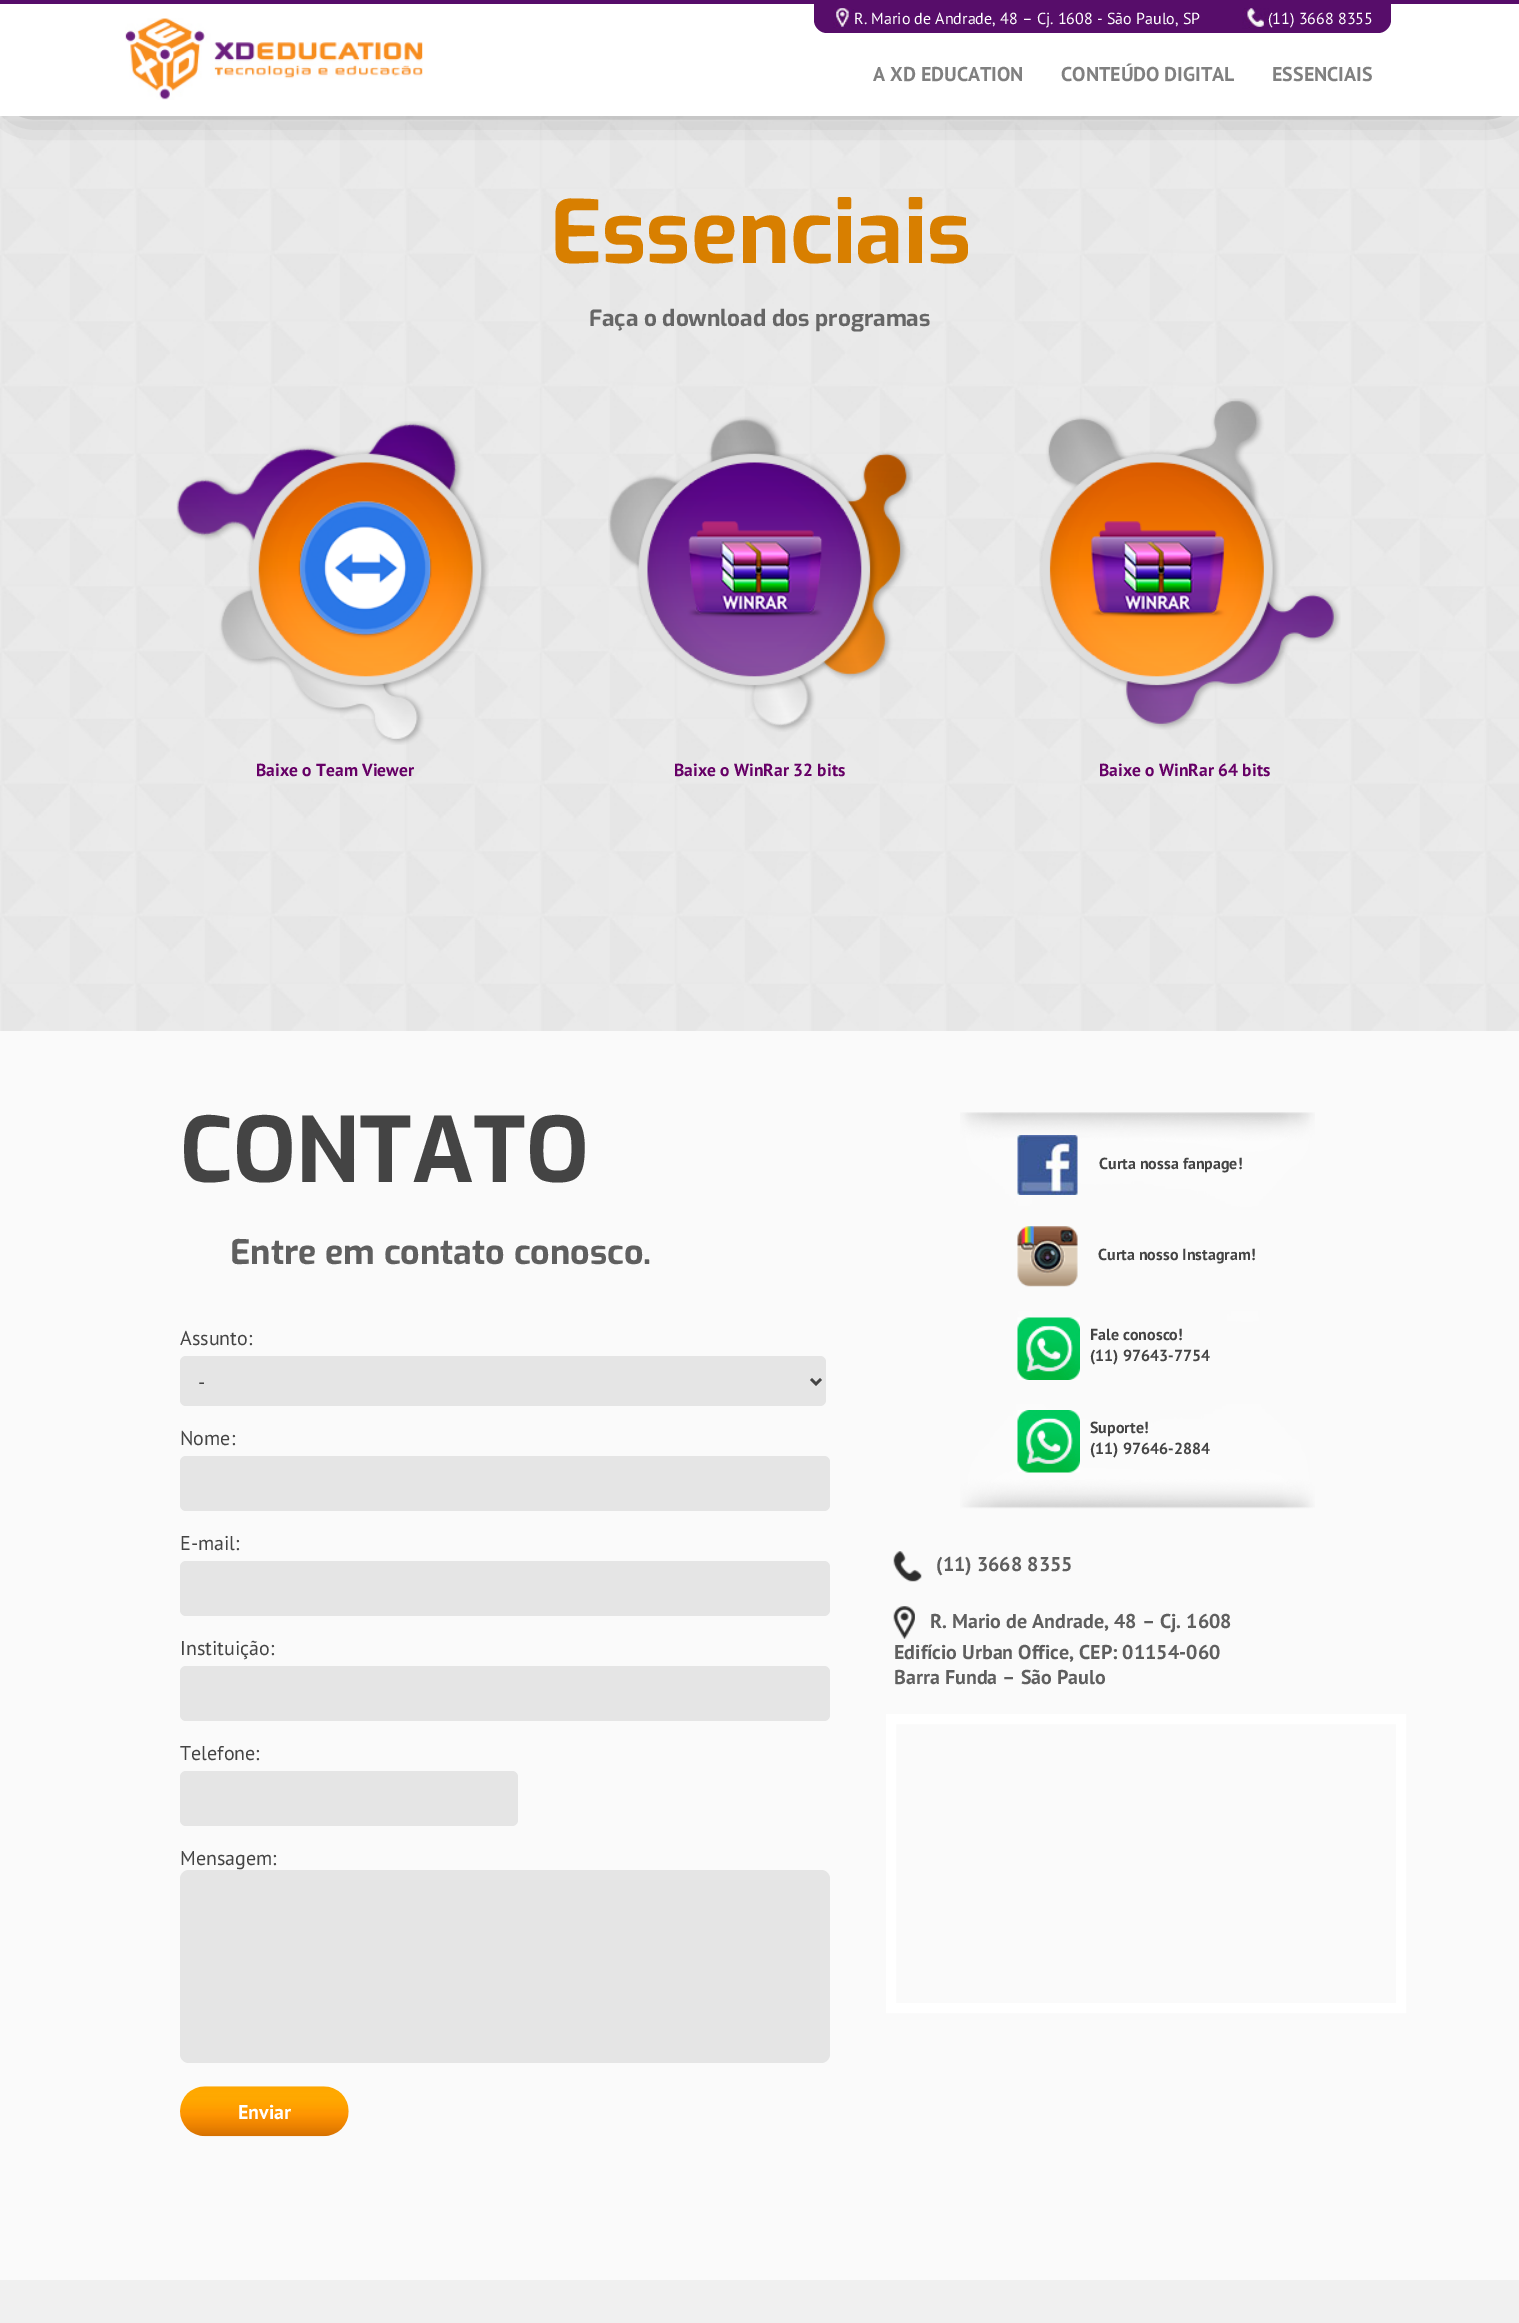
%!PS
<< /PageSize [1519 2323] /PageUsesTransparency true >> setpagedevice
/m/moveto load def
/l/rlineto load def
/c/rcurveto load def
/z/closepath load def
/f/fill load def
/s/stroke load def
/w/setlinewidth load def
/C { dup -16 bitshift 255 div exch dup -8 bitshift 255 and 255 div exch 255 and 255 div setrgbcolor } def
/F { [ exch dup neg 0 0 3 -1 roll 0 0 ] selectfont } def
/T { moveto show } def
/R { rectfill } def
/A { dup .setfillconstantalpha .setstrokeconstantalpha } def
/Q { 5 dict begin { /r /h /w /y /x } { exch def } forall
  x r add y moveto x w add y 2 copy h add r arct x w add y h add x 1 index r arct
  x y h add x y r arct x y 2 copy exch w add exch r arct closepath end } def
/S { 12 dict begin { /a /b /q /h /w /y /x } { exch def } forall gsave /was 0 def
  9 -2 -9 { dup b mul 4 div /e exch def 1 sub .425 mul 2.718 exch exp 1 add a .99 .min exch div /now exch def
    1 1 now sub 1 was sub div sub A /was now def
    w h .min e 2 mul add 0 gt { x e sub y e sub w e 2 mul add h e 2 mul add
      q e add b .6 mul add w h .min 2 div e add .min 0 .max Q fill } if } for grestore end } def
/I { 5 dict begin { /h /w /y /x /name } { exch def } forall
  gsave x y translate w h scale
  w h 8 [w 0 0 h 0 0] name (r) file false 3 colorimage grestore end } def
0 .pushpdf14devicefilter
0 2323 translate 1 -1 scale
4 setmiterlimit
16#FFFFFF C
0 0 1519 2323 R
(1.rgb) 0 116 1519 915 I
16#000000 C
23 23 1475 71 0 20.5 1 S
16#FFFFFF C
0 4 1519 112 R
16#570D6A C
0 0 1519 4 R
(2.rgb) 125 18 298 82 I
814 4 m 577 0 l 0 16 l 0 7 -6 13 -13 13 c -551 0 l -7 0 -13 -6 -13 -13 c z f
(3.rgb) 833 8 21 20 I
/PTSans-Regular 16 F
16#FFFFFF C
(R. Mario de Andrade, 48 – Cj. 1608 - São Paulo, SP) 854 24 T
(4.rgb) 1242 8 27 21 I
(\(11\) 3668 8355) 1268 24 T
/PTSans-Bold 20 F
16#808080 C
(A XD EDUCATION) 873 81 T
(CONTEÚDO DIGITAL) 1061 81 T
(ESSENCIAIS) 1272 81 T
/Exo-Bold 87.5 F
16#D87F00 C
(Essenciais) 550 263 T
/Exo-Bold 22.5 F
16#666666 C
(Faça o download dos programas) 589 326 T
(5.rgb) 176 421 313 324 I
(6.rgb) 608 416 305 316 I
(7.rgb) 1039 398 302 332 I
/PTSans-Bold 17.5 F
16#660066 C
(Baixe o Team Viewer) 256 776 T
(Baixe o WinRar 32 bits) 674 776 T
(Baixe o WinRar 64 bits) 1099 776 T
16#FAFAFA C
0 1031 1519 1249 R
/Exo-Bold 90 F
16#444444 C
(CONTATO) 180 1182 T
/Exo-Bold 34 F
16#5F5F5F C
(Entre em contato conosco.) 230 1264 T
/PTSans-Regular 20 F
16#444444 C
(Assunto:) 180 1345 T
16#E5E5E5 C
180 1356 646 50 6 Q f
16#444444 C
2.5 w
811 1379 m 5 5 l 5 -5 l s
(-) 198 1389 T
(Nome:) 180 1445 T
16#E5E5E5 C
180 1456 650 55 6 Q f
16#444444 C
(E-mail:) 180 1550 T
16#E5E5E5 C
180 1561 650 55 6 Q f
16#444444 C
(Instituição:) 180 1655 T
16#E5E5E5 C
180 1666 650 55 6 Q f
16#444444 C
(Telefone:) 180 1760 T
16#E5E5E5 C
180 1771 338 55 6 Q f
16#444444 C
(Mensagem:) 180 1865 T
16#E5E5E5 C
180 1870 650 193 9 Q f
(8.rgb) 180 2086 169 51 I
/PTSans-Bold 20 F
16#FFFFFF C
(Enviar) 238 2119 T
(9.rgb) 960 1112 355 397 I
(10.rgb) 1017 1135 61 60 I
/PTSans-Bold 16 F
16#444444 C
(Curta nossa fanpage!) 1099 1169 T
(11.rgb) 1017 1226 61 61 I
(Curta nosso Instagram!) 1098 1260 T
(12.rgb) 1017 1317 63 63 I
(Fale conosco!) 1090 1340 T
(\(11\) 97643-7754) 1090 1361 T
(13.rgb) 1017 1410 63 63 I
(Suporte!) 1090 1433 T
(\(11\) 97646-2884) 1090 1454 T
(14.rgb) 893 1551 29 31 I
/PTSans-Bold 20 F
16#5F5F5F C
(\(11\) 3668 8355) 936 1571 T
(15.rgb) 893 1606 22 33 I
(R. Mario de Andrade, 48 – Cj. 1608) 930 1628 T
(Edifício Urban Office, CEP: 01154-060) 894 1659 T
(Barra Funda – São Paulo) 894 1684 T
16#FFFFFF C
10 w
891 1719 510 289 rectstroke
16#F0F0F0 C
0 2280 1519 43 R
.poppdf14devicefilter showpage
